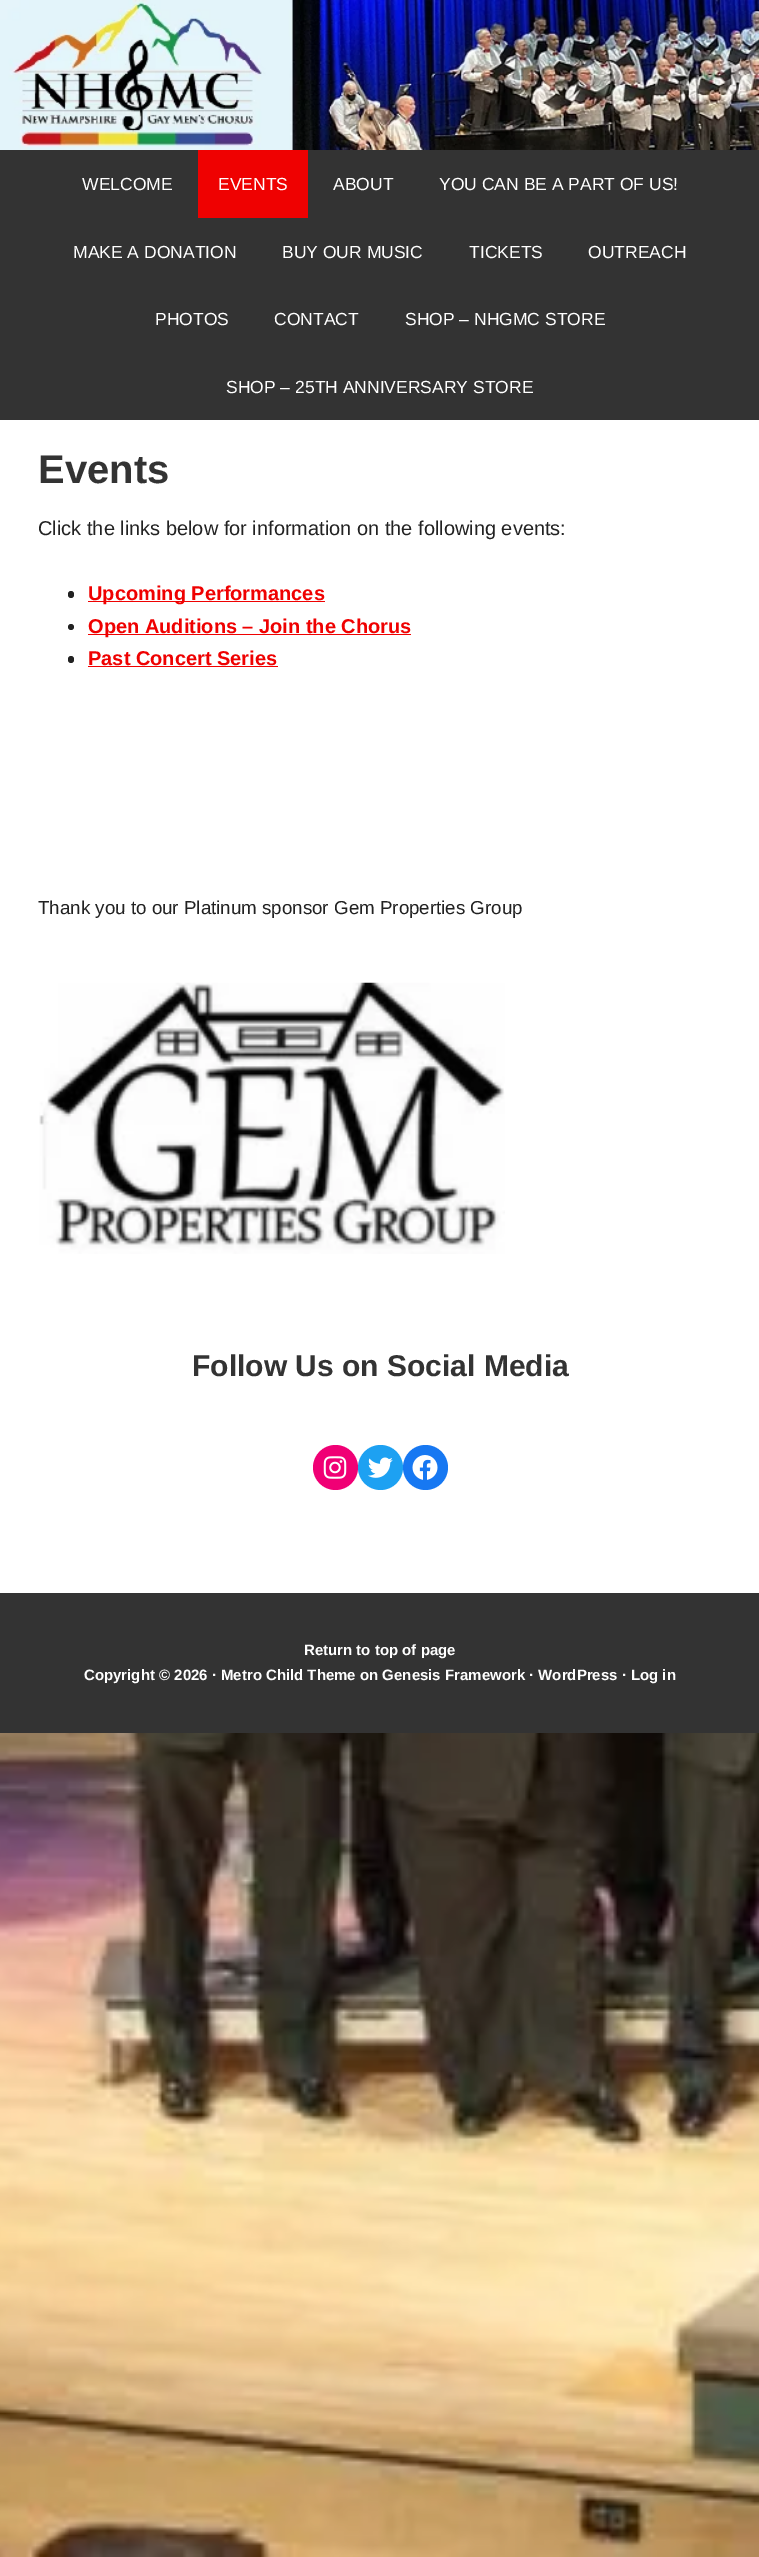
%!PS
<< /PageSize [759 2557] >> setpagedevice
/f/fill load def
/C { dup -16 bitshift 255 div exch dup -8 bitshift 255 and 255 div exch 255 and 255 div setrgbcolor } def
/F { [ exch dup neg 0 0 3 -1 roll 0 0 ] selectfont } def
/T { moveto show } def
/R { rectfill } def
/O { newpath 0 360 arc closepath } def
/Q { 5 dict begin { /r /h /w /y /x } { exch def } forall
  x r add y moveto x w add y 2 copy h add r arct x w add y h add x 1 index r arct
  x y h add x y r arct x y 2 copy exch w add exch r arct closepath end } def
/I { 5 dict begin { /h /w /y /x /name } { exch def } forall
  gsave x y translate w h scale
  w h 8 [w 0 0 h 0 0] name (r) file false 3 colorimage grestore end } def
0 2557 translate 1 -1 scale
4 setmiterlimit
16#FFFFFF C
0 0 759 2557 R
(1.rgb) 0 0 759 150 I
16#333333 C
0 150 759 270 R
/LiberationSans-Regular 17.5 F
16#FFFFFF C
(WELCOME) 82 190 T
16#EF0101 C
198 150 110 68 R
16#FFFFFF C
(EVENTS) 218 190 T
(ABOUT) 333 190 T
(YOU CAN BE A PART OF US!) 439 190 T
(MAKE A DONATION) 73 258 T
(BUY OUR MUSIC) 282 258 T
(TICKETS) 469 258 T
(OUTREACH) 588 258 T
(PHOTOS) 155 325 T
(CONTACT) 274 325 T
(SHOP – NHGMC STORE) 405 325 T
(SHOP – 25TH ANNIVERSARY STORE) 226 393 T
/LiberationSans-Bold 40 F
16#333333 C
(Events) 38 483 T
/LiberationSans-Regular 20 F
16#222222 C
(Click the links below for information on the following events:) 38 535 T
68 591 6 7 3 Q f
16#EF0101 C
88 601 237 1 R
/LiberationSans-Bold 20 F
(Upcoming Performances) 88 600 T
16#222222 C
71 627 3 O f
16#EF0101 C
88 634 323 1 R
(Open Auditions – Join the Chorus) 88 633 T
16#222222 C
68 656 6 7 3 Q f
16#EF0101 C
(Past Concert Series) 88 665 T
88 666 190 1 R
/LiberationSans-Regular 18.75 F
16#222222 C
(Thank you to our Platinum sponsor Gem Properties Group) 38 914 T
(2.rgb) 39 982 466 272 I
/LiberationSans-Bold 30 F
16#333333 C
(Follow Us on Social Media) 192 1376 T
16#F00075 C
335.5 1467.5 22.5 O f
(3.rgb) 323 1456 24 23 I
16#1DA1F2 C
380.5 1467.5 22.5 O f
(4.rgb) 368 1457 25 21 I
16#1778F2 C
425.5 1467.5 22.5 O f
(5.rgb) 412 1455 26 25 I
16#333333 C
0 1593 759 140 R
/LiberationSans-Bold 15 F
16#FFFFFF C
(Return to top of page) 304 1655 T
(Copyright © 2026 · Metro Child Theme on Genesis Framework · WordPress · Log in) 84 1680 T
(6.rgb) 0 1733 759 824 I
showpage
